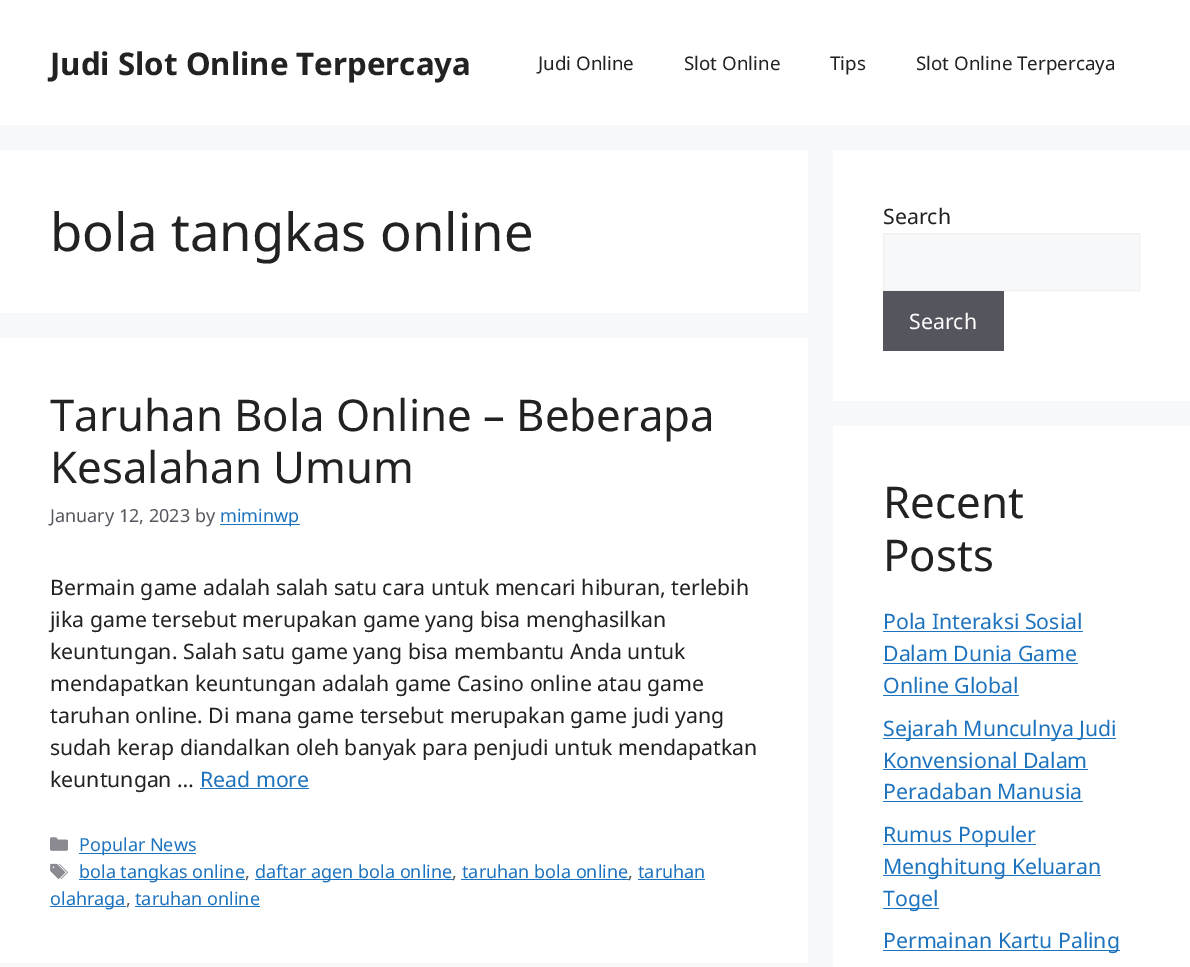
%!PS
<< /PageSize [1190 967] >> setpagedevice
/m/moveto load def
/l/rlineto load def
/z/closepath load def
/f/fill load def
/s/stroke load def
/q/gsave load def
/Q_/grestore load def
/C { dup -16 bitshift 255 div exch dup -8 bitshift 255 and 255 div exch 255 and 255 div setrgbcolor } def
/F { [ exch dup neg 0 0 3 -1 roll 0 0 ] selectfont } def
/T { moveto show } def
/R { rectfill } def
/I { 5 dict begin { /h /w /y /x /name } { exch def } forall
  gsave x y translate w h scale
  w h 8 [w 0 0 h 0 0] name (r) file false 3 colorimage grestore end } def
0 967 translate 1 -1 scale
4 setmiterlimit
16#F7F8F9 C
0 0 1190 967 R
16#FFFFFF C
0 0 1190 125 R
/NotoSans-Bold 31.25 F
16#222222 C
(Judi Slot Online Terpercaya) 50 75 T
/NotoSans-Regular 18.75 F
(Judi Online) 538 70 T
(Slot Online) 684 70 T
(Tips) 830 70 T
(Slot Online Terpercaya) 916 70 T
16#FFFFFF C
0 150 808 163 R
/NotoSans-Regular 52.5 F
16#222222 C
(bola tangkas online) 50 251 T
16#FFFFFF C
0 338 808 625 R
/NotoSans-Regular 43.75 F
16#222222 C
(Taruhan Bola Online – Beberapa) 50 431 T
(Kesalahan Umum) 50 483 T
/NotoSans-Regular 18 F
16#575760 C
(January 12, 2023 by) 50 522 T
16#1E73BE C
220 524 80 1 R
(miminwp) 220 522 T
/NotoSans-Regular 21.25 F
16#222222 C
(Bermain game adalah salah satu cara untuk mencari hiburan, terlebih) 50 595 T
(jika game tersebut merupakan game yang bisa menghasilkan) 50 627 T
(keuntungan. Salah satu game yang bisa membantu Anda untuk) 50 659 T
(mendapatkan keuntungan adalah game Casino online atau game) 50 691 T
(taruhan online. Di mana game tersebut merupakan game judi yang) 50 723 T
(sudah kerap diandalkan oleh banyak para penjudi untuk mendapatkan) 50 755 T
(keuntungan …) 50 787 T
16#1E73BE C
(Read more) 200 787 T
200 788 109 1 R
(1.rgb) 50 837 18 14 I
79 853 117 1 R
/NotoSans-Regular 18 F
(Popular News) 79 851 T
(2.rgb) 50 863 18 16 I
79 879 166 1 R
(bola tangkas online) 79 878 T
16#575760 C
(,) 245 878 T
16#1E73BE C
255 879 198 1 R
(daftar agen bola online) 255 878 T
16#575760 C
(,) 452 878 T
16#1E73BE C
(taruhan bola online) 462 878 T
461 879 168 1 R
16#575760 C
(,) 628 878 T
16#1E73BE C
(taruhan) 638 878 T
638 879 67 1 R
50 906 76 1 R
(olahraga) 50 905 T
16#575760 C
(,) 126 905 T
16#1E73BE C
(taruhan online) 135 905 T
135 906 125 1 R
16#FFFFFF C
833 150 357 251 R
/NotoSans-Regular 21.25 F
16#222222 C
(Search) 883 224 T
16#F7F8F9 C
883.5 233.5 m 256 0 l 0 57 l -256 0 l z q f Q_
16#F0F0F0 C
s
16#55555E C
883 291 121 60 R
16#FFFFFF C
(Search) 909 329 T
833 426 357 541 R
/NotoSans-Regular 43.75 F
16#222222 C
(Recent) 883 518 T
(Posts) 883 571 T
/NotoSans-Regular 21.25 F
16#1E73BE C
(Pola Interaksi Sosial) 883 629 T
883 631 200 1 R
(Dalam Dunia Game) 883 661 T
883 663 195 1 R
(Online Global) 883 693 T
883 695 136 1 R
883 738 233 1 R
(Sejarah Munculnya Judi) 883 736 T
(Konvensional Dalam) 883 768 T
883 769 205 1 R
(Peradaban Manusia) 883 799 T
883 801 200 1 R
883 844 153 1 R
(Rumus Populer) 883 842 T
883 875 218 1 R
(Menghitung Keluaran) 883 874 T
883 908 56 1 R
(Togel) 883 906 T
883 950 237 1 R
(Permainan Kartu Paling) 883 948 T
showpage
